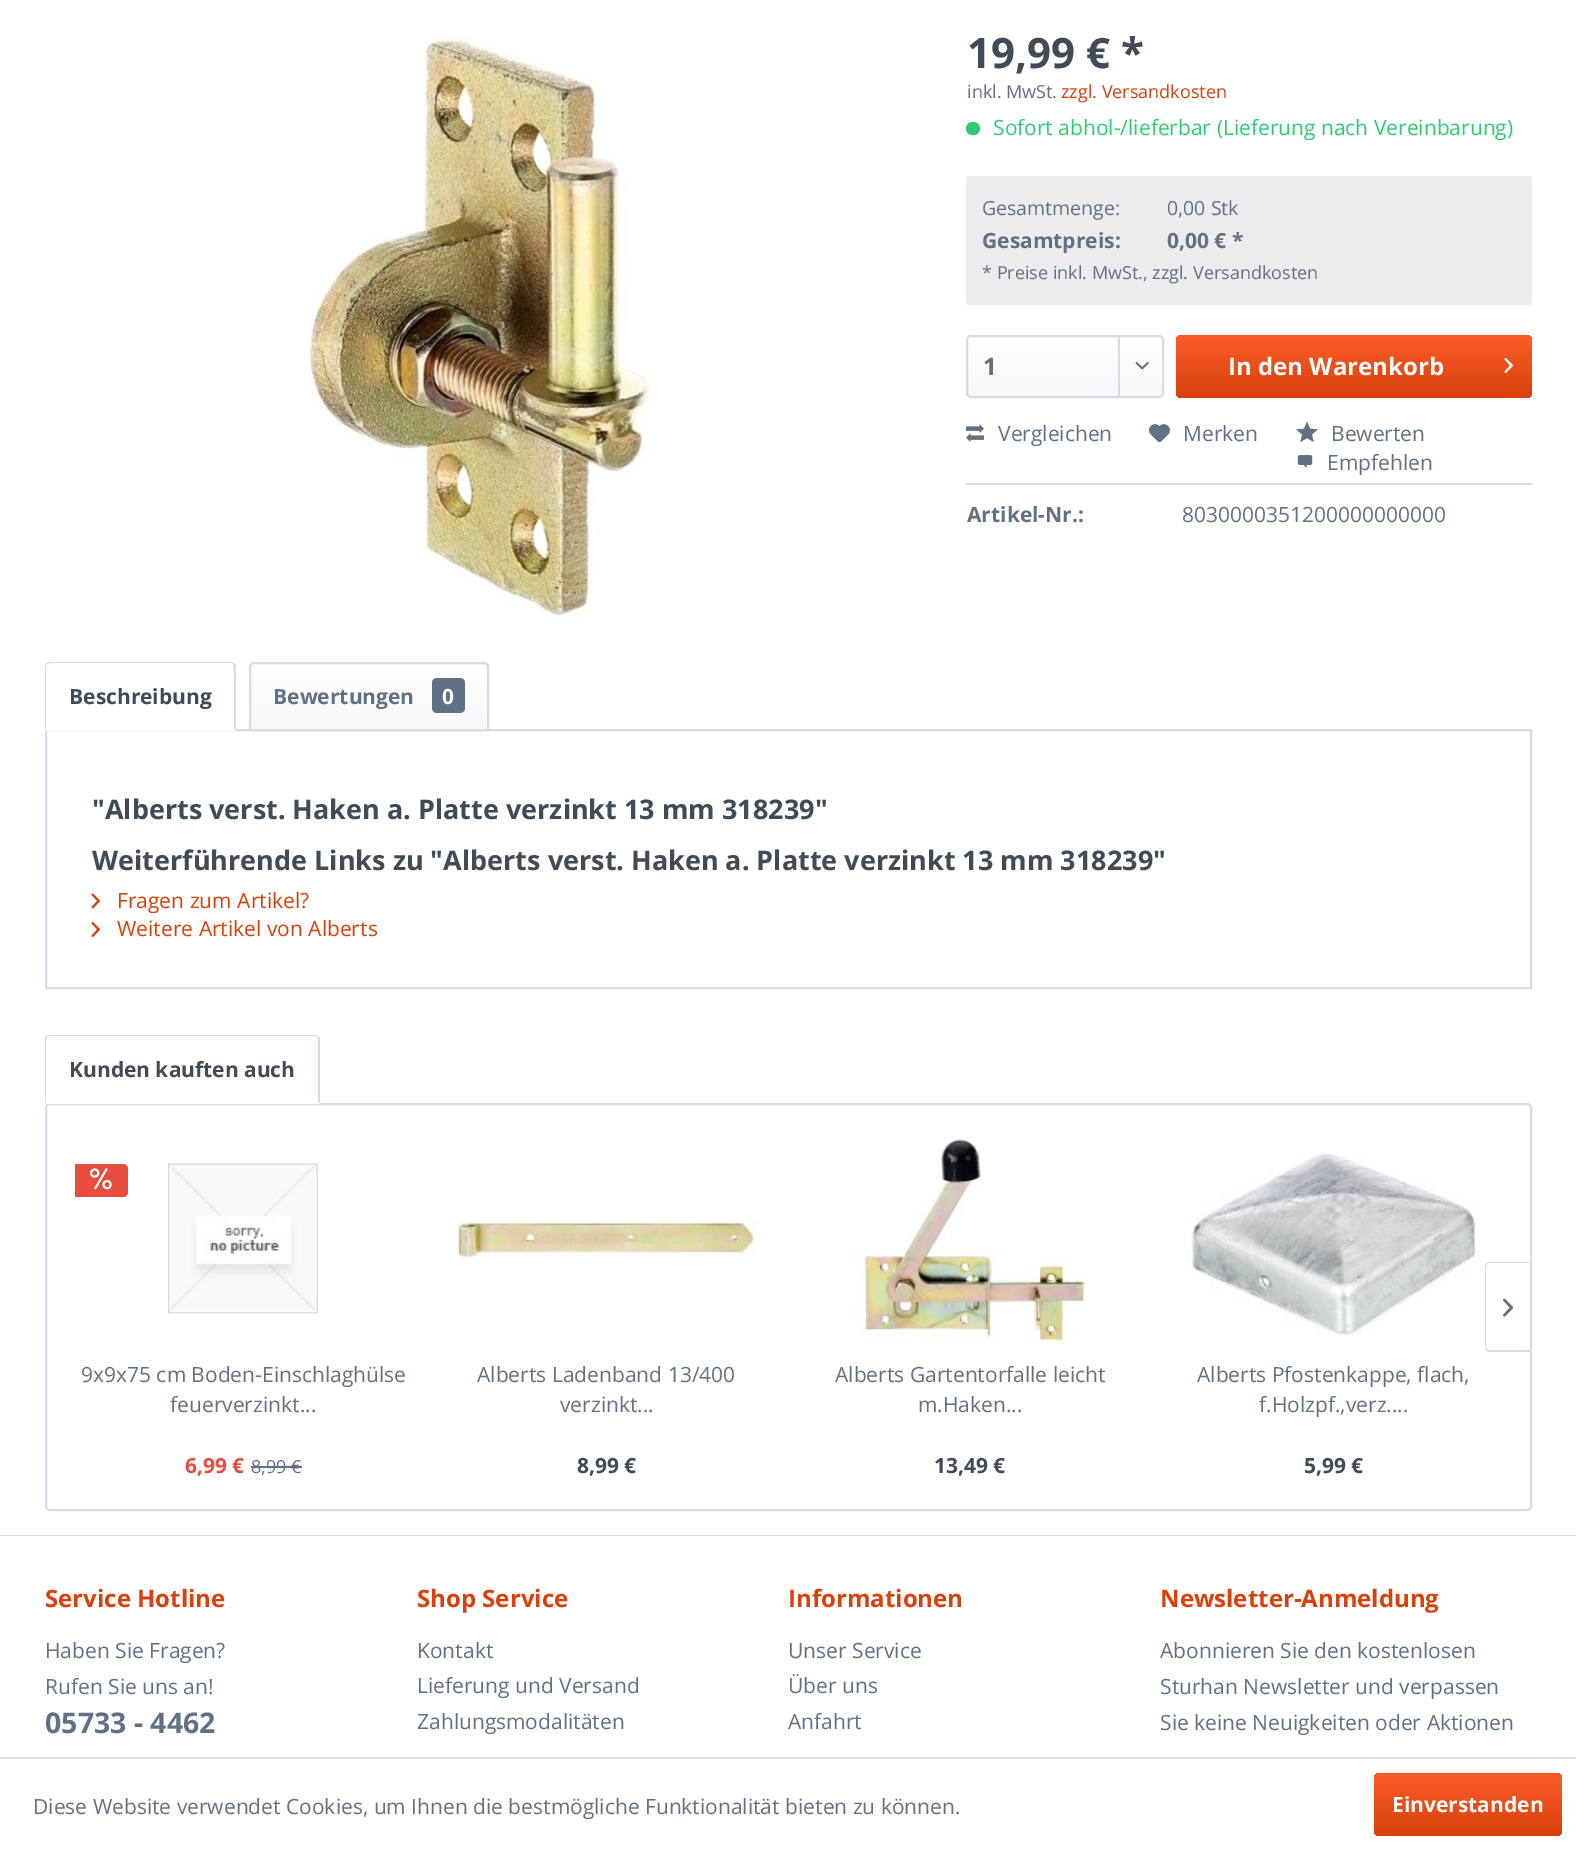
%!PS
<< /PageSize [1576 1852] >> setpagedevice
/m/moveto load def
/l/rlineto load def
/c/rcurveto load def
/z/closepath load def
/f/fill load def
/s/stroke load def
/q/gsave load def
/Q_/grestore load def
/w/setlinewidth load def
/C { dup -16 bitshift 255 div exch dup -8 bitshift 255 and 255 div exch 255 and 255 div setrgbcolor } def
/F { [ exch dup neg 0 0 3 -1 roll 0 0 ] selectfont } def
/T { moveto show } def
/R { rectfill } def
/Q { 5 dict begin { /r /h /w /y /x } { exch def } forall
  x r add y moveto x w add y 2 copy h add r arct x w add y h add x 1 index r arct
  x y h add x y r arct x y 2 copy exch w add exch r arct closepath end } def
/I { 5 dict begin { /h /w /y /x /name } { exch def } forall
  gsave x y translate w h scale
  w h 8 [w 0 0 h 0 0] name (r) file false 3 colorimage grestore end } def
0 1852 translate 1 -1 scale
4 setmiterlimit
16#FFFFFF C
0 0 1576 1852 R
(1.rgb) 307 38 343 583 I
/OpenSans-Bold 42 F
16#3F4C58 C
(19,99 € *) 967 68 T
/OpenSans-Regular 18 F
16#5F7285 C
(inkl. MwSt.) 967 98 T
16#D9400B C
(zzgl. Versandkosten) 1061 98 T
16#2ECC71 C
966 122 14 13 6.5 Q f
/OpenSans-Regular 21 F
(Sofort abhol-/lieferbar \(Lieferung nach Vereinbarung\)) 993 135 T
16#ECECEC C
966 176 566 129 3 Q f
/OpenSans-Regular 19.5 F
16#5F7285 C
(Gesamtmenge:) 982 215 T
(0,00 Stk) 1167 215 T
/OpenSans-Bold 21 F
(Gesamtpreis:) 982 248 T
(0,00 € *) 1167 248 T
/OpenSans-Regular 18 F
(* Preise inkl. MwSt., zzgl. Versandkosten) 982 279 T
q 968 336 195 60 3 Q clip newpath
<< /ShadingType 2 /ColorSpace /DeviceRGB /Coords [1065 336 1065 396] /Extend [true true] /Function << /FunctionType 2 /Domain [0 1] /C0 [1 1 1] /C1 [.973 .973 .98] /N 1 >> >> shfill Q_
16#DADAE5 C
2 w
967 336 196 61 4 Q s
/OpenSans-Bold 24 F
16#5F7285 C
(1) 983 375 T
16#DADAE5 C
1118 336 2 60 R
(2.rgb) 1135 362 14 8 I
q 1176 335 356 63 5 Q clip newpath
<< /ShadingType 2 /ColorSpace /DeviceRGB /Coords [1354 335 1354 398] /Extend [true true] /Function << /FunctionType 2 /Domain [0 1] /C0 [.98 .365 .153] /C1 [.851 .251 .043] /N 1 >> >> shfill Q_
16#FFFFFF C
(In den Warenkorb) 1228 375 T
(3.rgb) 1504 358 9 15 I
16#DADAE5 C
966 483 566 2 R
(4.rgb) 966 424 18 18 I
/OpenSans-Regular 21 F
16#5F7285 C
(Vergleichen) 998 441 T
(5.rgb) 1149 424 21 19 I
(Merken) 1183 441 T
(6.rgb) 1296 421 22 22 I
(Bewerten) 1331 441 T
(7.rgb) 1297 455 16 13 I
(Empfehlen) 1327 470 T
/OpenSans-Bold 21 F
(Artikel-Nr.:) 967 522 T
/OpenSans-Regular 21 F
(8030000351200000000000) 1182 522 T
16#DADAE5 C
46 730 1485 258 rectstroke
16#FFFFFF C
50 662 m 181 0 l 3 0 5 2 5 5 c 0 64 l -191 0 l 0 -64 l 0 -3 2 -5 5 -5 c z f
16#DADAE5 C
50 662 m -3 1 l 0 1 l 3 -1 l 181 0 l 2 1 l 1 -1 l -3 -1 l z f
236 730 m -2 -1 l 0 -7 1 -64 -1 -65 c 1 -1 l 2 2 l z f
16#FFFFFF C
235 730 m -189 0 l 0 -1 l 188 0 l z f
16#DADAE5 C
45 666 m 0 64 l 1 0 l 0 -1 l 0 -63 l 1 -2 l 0 -1 l -1 1 -2 2 -2 3 c z f
/OpenSans-Bold 21 F
16#3F4C58 C
(Beschreibung) 69 704 T
q 254 663 m 231 0 l 1.5 0 3 1.5 3 3 c 0 63 l -237 0 l 0 -63 l 0 -1.5 1.5 -3 3 -3 c z clip newpath
<< /ShadingType 2 /ColorSpace /DeviceRGB /Coords [369 663 369 729] /Extend [true true] /Function << /FunctionType 2 /Domain [0 1] /C0 [1 1 1] /C1 [.973 .973 .98] /N 1 >> >> shfill Q_
16#DADAE5 C
254 663 m 230 0 l 2 0 4 2 4 4 c 0 63 l -238 0 l 0 -63 l 0 -2 2 -4 4 -4 c z s
16#5F7285 C
(Bewertungen) 273 704 T
432 678 33 35 5 Q f
16#FFFFFF C
(0) 442 704 T
/OpenSans-Bold 27 F
16#3F4C58 C
("Alberts verst. Haken a. Platte verzinkt 13 mm 318239") 92 819 T
(Weiterführende Links zu "Alberts verst. Haken a. Platte verzinkt 13 mm 318239") 92 870 T
(8.rgb) 91 893 9 16 I
/OpenSans-Regular 21 F
16#D9400B C
(Fragen zum Artikel?) 117 908 T
(9.rgb) 91 922 9 15 I
(Weitere Artikel von Alberts) 117 936 T
16#DADAE5 C
46 1104 1485 406 4 Q s
16#FFFFFF C
50 1035 m 265 0 l 3 0 5 2 5 5 c 0 64 l -275 0 l 0 -64 l 0 -3 2 -5 5 -5 c z f
16#DADAE5 C
50 1035 m -2 0 -3 1 -4 1 c 1 1 l 1 -1 2 -1 3 -1 c 265 0 l 1 0 2 0 2 1 c 1 -1 l -3 -1 l z f
320 1038 m 0 66 l -2 -2 l 0 -62 l -1 -3 l 1 -1 l z f
16#FFFFFF C
320 1104 m -2 -2 l -271 0 l -2 2 l z f
16#DADAE5 C
45 1104 m 2 -2 l -1 0 l 0 -62 l 1 -3 l -1 -1 l 0 1 -1 2 -1 4 c z f
/OpenSans-Bold 21 F
16#3F4C58 C
(Kunden kauften auch) 69 1077 T
16#DADAE5 C
1490 1262 m 40 0 l 0 90 l -40 0 l -3 0 -5 -3 -5 -5 c 0 -81 l 0 -2 2 -4 5 -4 c z 1490 1263 m 40 0 l 0 87 l -40 0 l -2 0 -4 -1 -4 -3 c 0 -81 l 0 -2 2 -3 4 -3 c z eofill
(10.rgb) 1503 1298 11 19 I
16#E74C3C C
75 1164 m 48 0 l 3 0 5 2 5 5 c 0 23 l 0 3 -2 5 -5 5 c -48 0 l z f
(11.rgb) 90 1168 22 22 I
(12.rgb) 168 1163 150 151 I
/OpenSans-Regular 21 F
16#5F7285 C
(9x9x75 cm Boden-Einschlaghülse) 81 1382 T
(feuerverzinkt...) 170 1412 T
/OpenSans-Bold 21 F
16#E74C3C C
(6,99 €) 185 1473 T
/OpenSans-Regular 18 F
16#5F7285 C
(8,99 €) 251 1473 T
251 1466 51 2 R
(13.rgb) 456 1220 300 38 I
/OpenSans-Regular 21 F
(Alberts Ladenband 13/400) 477 1382 T
(verzinkt...) 560 1412 T
/OpenSans-Bold 21 F
16#3F4C58 C
(8,99 €) 577 1473 T
(14.rgb) 850 1135 239 209 I
/OpenSans-Regular 21 F
16#5F7285 C
(Alberts Gartentorfalle leicht) 835 1382 T
(m.Haken...) 918 1412 T
/OpenSans-Bold 21 F
16#3F4C58 C
(13,49 €) 934 1473 T
(15.rgb) 1190 1153 290 183 I
/OpenSans-Regular 21 F
16#5F7285 C
(Alberts Pfostenkappe, flach,) 1197 1382 T
(f.Holzpf.,verz....) 1259 1412 T
/OpenSans-Bold 21 F
16#3F4C58 C
(5,99 €) 1304 1473 T
16#DADAE5 C
0 1535 1576 1 R
/OpenSans-Bold 24 F
16#D9400B C
(Service Hotline) 45 1607 T
/OpenSans-Regular 21 F
16#5F7285 C
(Haben Sie Fragen?) 45 1658 T
(Rufen Sie uns an!) 45 1694 T
/OpenSans-Bold 28.5 F
(05733 - 4462) 45 1733 T
/OpenSans-Bold 24 F
16#D9400B C
(Shop Service) 417 1607 T
/OpenSans-Regular 21 F
16#5F7285 C
(Kontakt) 417 1658 T
(Lieferung und Versand) 417 1693 T
(Zahlungsmodalitäten) 417 1729 T
/OpenSans-Bold 24 F
16#D9400B C
(Informationen) 788 1607 T
/OpenSans-Regular 21 F
16#5F7285 C
(Unser Service) 788 1658 T
(Über uns) 788 1693 T
(Anfahrt) 788 1729 T
/OpenSans-Bold 24 F
16#D9400B C
(Newsletter-Anmeldung) 1160 1607 T
/OpenSans-Regular 21 F
16#5F7285 C
(Abonnieren Sie den kostenlosen) 1160 1658 T
(Sturhan Newsletter und verpassen) 1160 1694 T
(Sie keine Neuigkeiten oder Aktionen) 1160 1730 T
16#DADAE5 C
0 1757 1576 2 R
16#5F7285 C
(Diese Website verwendet Cookies, um Ihnen die bestmögliche Funktionalität bieten zu können.) 33 1814 T
q 1374 1773 188 63 5 Q clip newpath
<< /ShadingType 2 /ColorSpace /DeviceRGB /Coords [1468 1773 1468 1836] /Extend [true true] /Function << /FunctionType 2 /Domain [0 1] /C0 [.98 .365 .153] /C1 [.851 .251 .043] /N 1 >> >> shfill Q_
/OpenSans-Bold 21 F
16#FFFFFF C
(Einverstanden) 1392 1812 T
showpage
